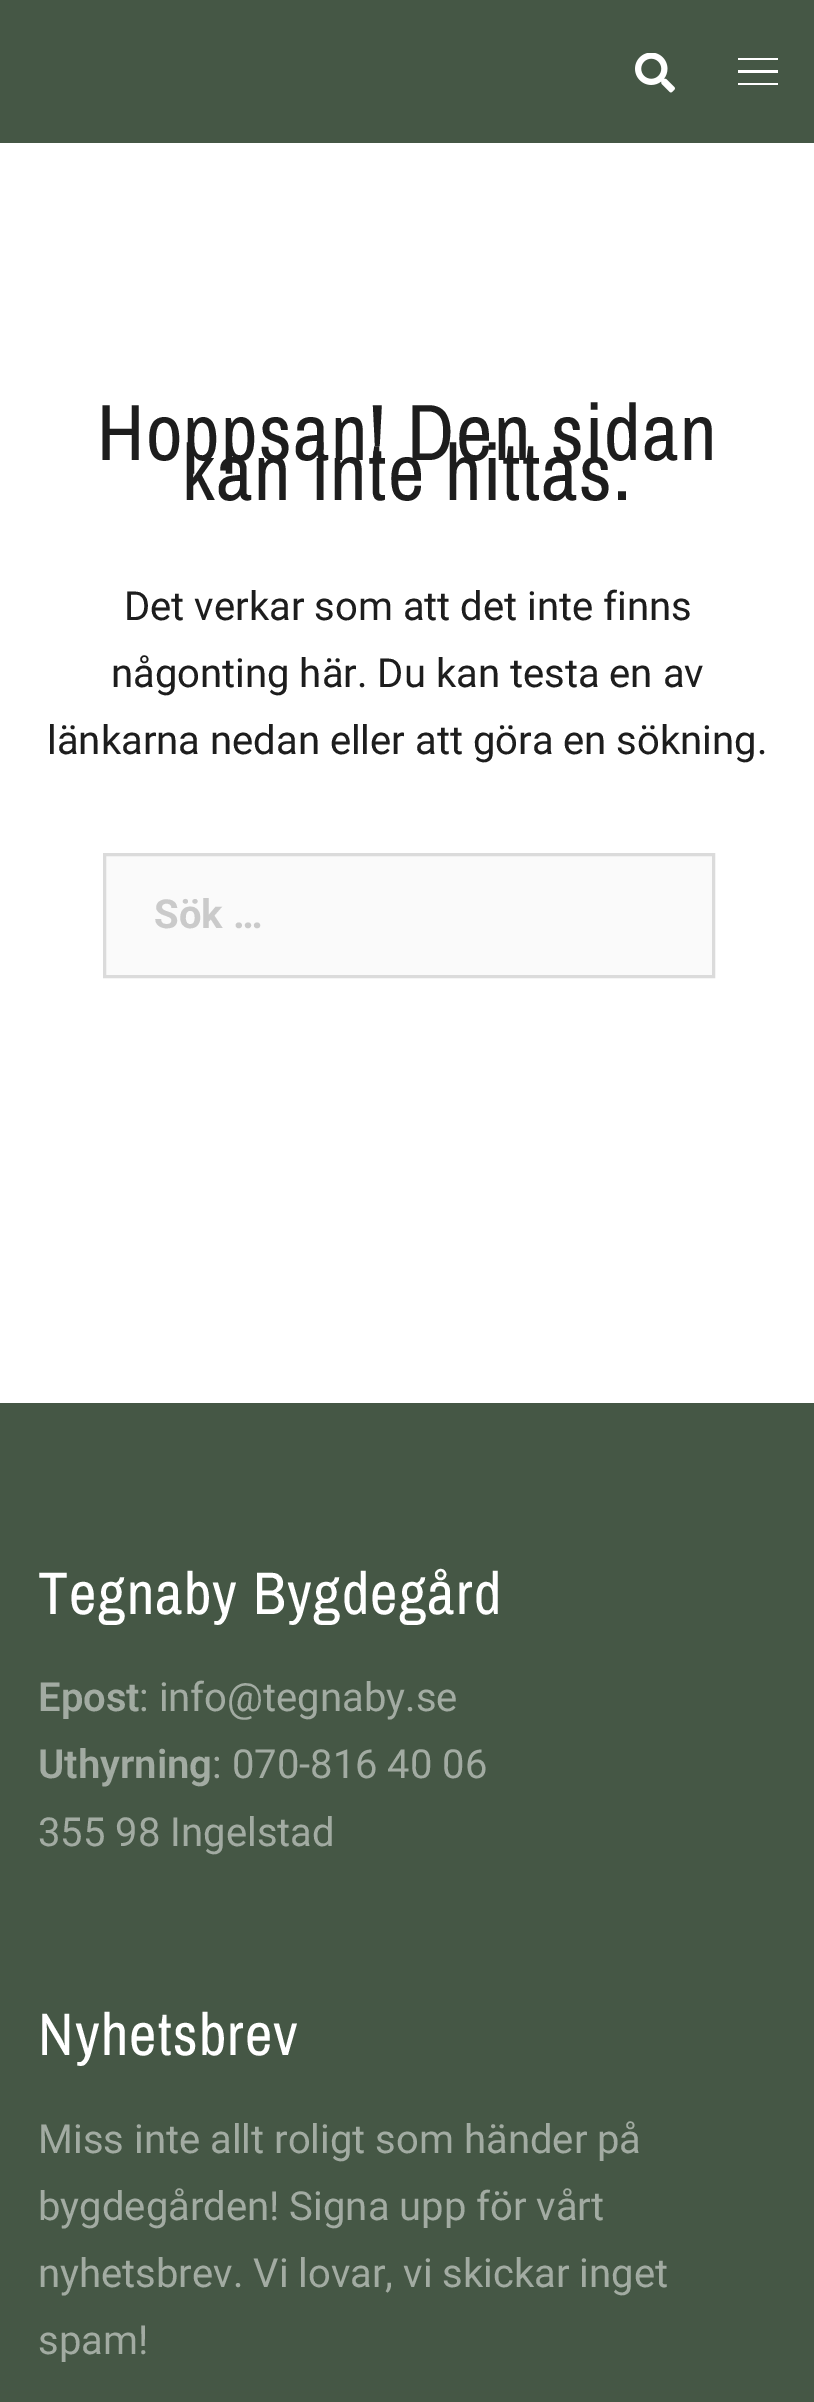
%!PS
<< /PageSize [814 2402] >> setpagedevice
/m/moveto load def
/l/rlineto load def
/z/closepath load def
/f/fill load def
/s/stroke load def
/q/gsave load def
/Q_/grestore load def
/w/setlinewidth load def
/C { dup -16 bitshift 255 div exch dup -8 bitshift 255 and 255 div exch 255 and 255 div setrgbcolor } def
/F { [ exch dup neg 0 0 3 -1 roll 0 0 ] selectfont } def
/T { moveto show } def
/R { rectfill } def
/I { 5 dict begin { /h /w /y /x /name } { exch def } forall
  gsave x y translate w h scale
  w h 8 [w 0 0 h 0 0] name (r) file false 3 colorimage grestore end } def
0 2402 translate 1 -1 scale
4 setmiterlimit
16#FFFFFF C
0 0 814 2402 R
16#455745 C
0 0 814 143 R
(1.rgb) 635 53 40 40 I
16#FFFFFF C
738 58 40 2 R
738 70 40 3 R
738 83 40 2 R
/ArchivoNarrow-Regular 80 F
16#1D1D1D C
97 460 m 1.25 0 (Hoppsan! Den sidan) ashow
182 500 m 1.25 0 (kan inte hittas.) ashow
/Roboto-Regular 40 F
(Det verkar som att det inte finns) 124 620 T
(någonting här. Du kan testa en av) 111 687 T
(länkarna nedan eller att göra en sökning.) 47 754 T
16#FAFAFA C
104.5 854.5 m 609 0 l 0 122 l -609 0 l z q f Q_
16#DBDBDB C
3 w
s
/Roboto-Bold 40 F
16#CACACA C
(Sök …) 154 928 T
16#455745 C
0 1403 814 999 R
/ArchivoNarrow-Regular 60 F
16#FFFFFF C
38 1614 m 1.25 0 (Tegnaby Bygdegård) ashow
/Roboto-SemiBold 40 F
16#A2ABA2 C
(Epost) 38 1711 T
/Roboto-Regular 40 F
(: info@tegnaby.se) 139 1711 T
/Roboto-SemiBold 40 F
(Uthyrning) 38 1778 T
/Roboto-Regular 40 F
(: 070-816 40 06) 212 1778 T
(355 98 Ingelstad) 38 1846 T
/ArchivoNarrow-Regular 60 F
16#FFFFFF C
38 2055 m 1.25 0 (Nyhetsbrev) ashow
/Roboto-Regular 40 F
16#A2ABA2 C
(Miss inte allt roligt som händer på) 38 2153 T
(bygdegården! Signa upp för vårt) 38 2220 T
(nyhetsbrev. Vi lovar, vi skickar inget) 38 2287 T
(spam!) 38 2354 T
showpage
